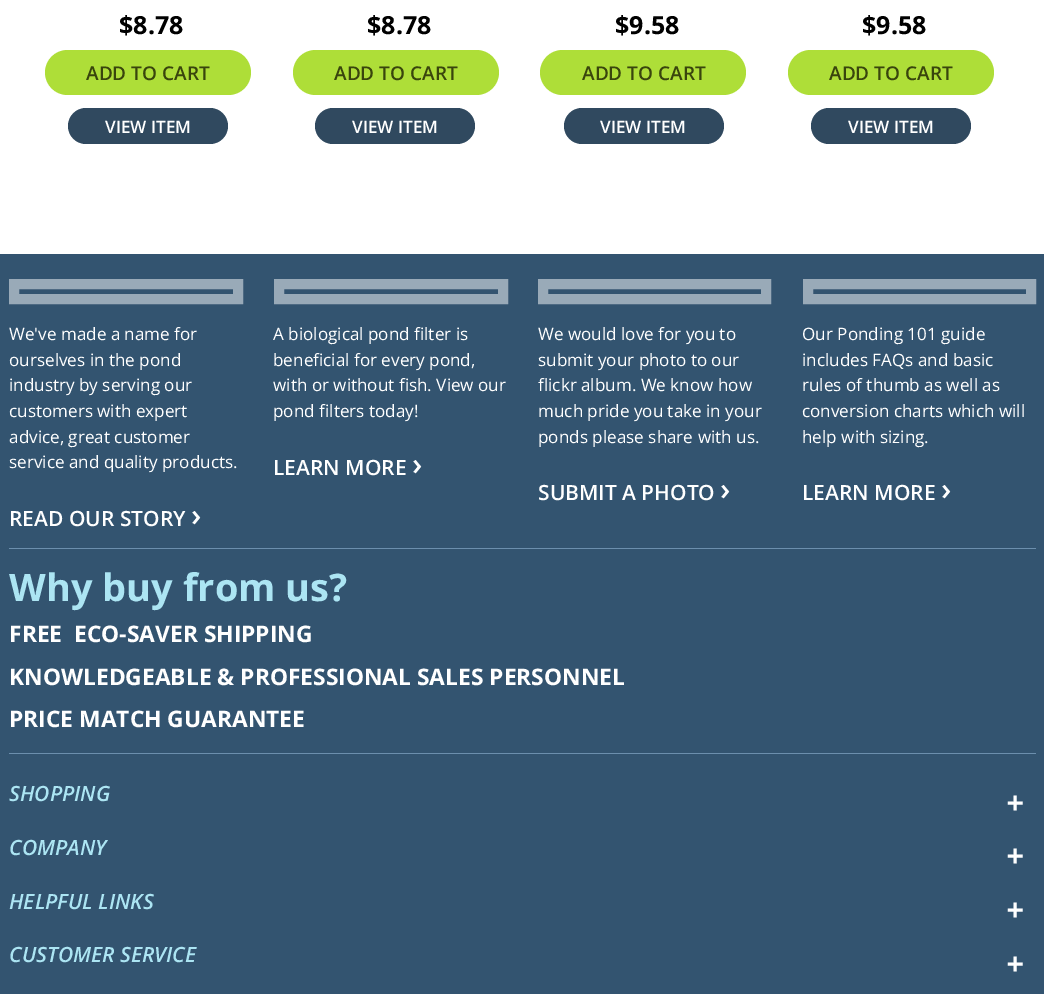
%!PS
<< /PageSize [1044 994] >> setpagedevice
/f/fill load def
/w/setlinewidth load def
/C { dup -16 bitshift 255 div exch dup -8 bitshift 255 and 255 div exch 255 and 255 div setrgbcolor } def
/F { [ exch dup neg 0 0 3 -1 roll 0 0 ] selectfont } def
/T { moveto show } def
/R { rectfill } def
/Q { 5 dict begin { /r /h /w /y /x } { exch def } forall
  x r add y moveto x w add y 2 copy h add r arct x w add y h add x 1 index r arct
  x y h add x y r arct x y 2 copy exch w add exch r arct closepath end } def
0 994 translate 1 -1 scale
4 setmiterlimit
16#FFFFFF C
0 0 1044 994 R
/OpenSans-Bold 25 F
16#000000 C
($8.78) 119 34 T
16#AEDE38 C
45 50 206 45 22.5 Q f
/OpenSans-SemiBold 19 F
16#39450D C
(ADD TO CART) 86 80 T
16#30495F C
68 108 160 36 18 Q f
/OpenSans-SemiBold 17.1 F
16#FFFFFF C
(VIEW ITEM) 105 133 T
/OpenSans-Bold 25 F
16#000000 C
($8.78) 367 34 T
16#AEDE38 C
293 50 206 45 22.5 Q f
/OpenSans-SemiBold 19 F
16#39450D C
(ADD TO CART) 334 80 T
16#30495F C
315 108 160 36 18 Q f
/OpenSans-SemiBold 17.1 F
16#FFFFFF C
(VIEW ITEM) 352 133 T
/OpenSans-Bold 25 F
16#000000 C
($9.58) 615 34 T
16#AEDE38 C
540 50 206 45 22.5 Q f
/OpenSans-SemiBold 19 F
16#39450D C
(ADD TO CART) 582 80 T
16#30495F C
564 108 160 36 18 Q f
/OpenSans-SemiBold 17.1 F
16#FFFFFF C
(VIEW ITEM) 600 133 T
/OpenSans-Bold 25 F
16#000000 C
($9.58) 862 34 T
16#AEDE38 C
788 50 206 45 22.5 Q f
/OpenSans-SemiBold 19 F
16#39450D C
(ADD TO CART) 829 80 T
16#30495F C
811 108 160 36 18 Q f
/OpenSans-SemiBold 17.1 F
16#FFFFFF C
(VIEW ITEM) 848 133 T
16#335470 C
0 254 1044 740 R
16#99AAB8 C
10 w
14 284 224 15 rectstroke
/OpenSans-Regular 17.1 F
16#FFFFFF C
(We've made a name for) 9 340 T
(ourselves in the pond) 9 366 T
(industry by serving our) 9 391 T
(customers with expert) 9 417 T
(advice, great customer) 9 443 T
(service and quality products.) 9 468 T
/OpenSans-SemiBold 21 F
(READ OUR STORY) 9 526 T
/OpenSans-SemiBold 31 F
(›) 191 526 T
16#99AAB8 C
279 284 224 15 rectstroke
/OpenSans-Regular 17.1 F
16#FFFFFF C
(A biological pond filter is) 273 340 T
(beneficial for every pond,) 273 366 T
(with or without fish. View our) 273 391 T
(pond filters today!) 273 417 T
/OpenSans-SemiBold 21 F
(LEARN MORE) 273 475 T
/OpenSans-SemiBold 31 F
(›) 412 475 T
16#99AAB8 C
543 284 223 15 rectstroke
/OpenSans-Regular 17.1 F
16#FFFFFF C
(We would love for you to) 538 340 T
(submit your photo to our) 538 366 T
(flickr album. We know how) 538 391 T
(much pride you take in your) 538 417 T
(ponds please share with us.) 538 443 T
/OpenSans-SemiBold 21 F
(SUBMIT A PHOTO) 538 500 T
/OpenSans-SemiBold 31 F
(›) 720 500 T
16#99AAB8 C
808 284 223 15 rectstroke
/OpenSans-Regular 17.1 F
16#FFFFFF C
(Our Ponding 101 guide) 802 340 T
(includes FAQs and basic) 802 366 T
(rules of thumb as well as) 802 391 T
(conversion charts which will) 802 417 T
(help with sizing.) 802 443 T
/OpenSans-SemiBold 21 F
(LEARN MORE) 802 500 T
/OpenSans-SemiBold 31 F
(›) 941 500 T
16#6C8FAD C
9 548 1027 1 R
9 753 1027 1 R
/OpenSans-Bold 38 F
16#ACE5F3 C
(Why buy from us?) 9 601 T
/OpenSans-Bold 22.8 F
16#FFFFFF C
(FREE) 9 642 T
(ECO-SAVER SHIPPING) 74 642 T
(KNOWLEDGEABLE & PROFESSIONAL SALES PERSONNEL) 9 685 T
(PRICE MATCH GUARANTEE) 9 727 T
/OpenSans-SemiBoldItalic 21 F
16#ACE5F3 C
(SHOPPING) 9 801 T
/OpenSans-BoldItalic 31 F
16#FFFFFF C
(+) 1006 814 T
/OpenSans-SemiBoldItalic 21 F
16#ACE5F3 C
(COMPANY) 9 855 T
/OpenSans-BoldItalic 31 F
16#FFFFFF C
(+) 1006 867 T
/OpenSans-SemiBoldItalic 21 F
16#ACE5F3 C
(HELPFUL LINKS) 9 909 T
/OpenSans-BoldItalic 31 F
16#FFFFFF C
(+) 1006 921 T
/OpenSans-SemiBoldItalic 21 F
16#ACE5F3 C
(CUSTOMER SERVICE) 9 962 T
/OpenSans-BoldItalic 31 F
16#FFFFFF C
(+) 1006 975 T
showpage
